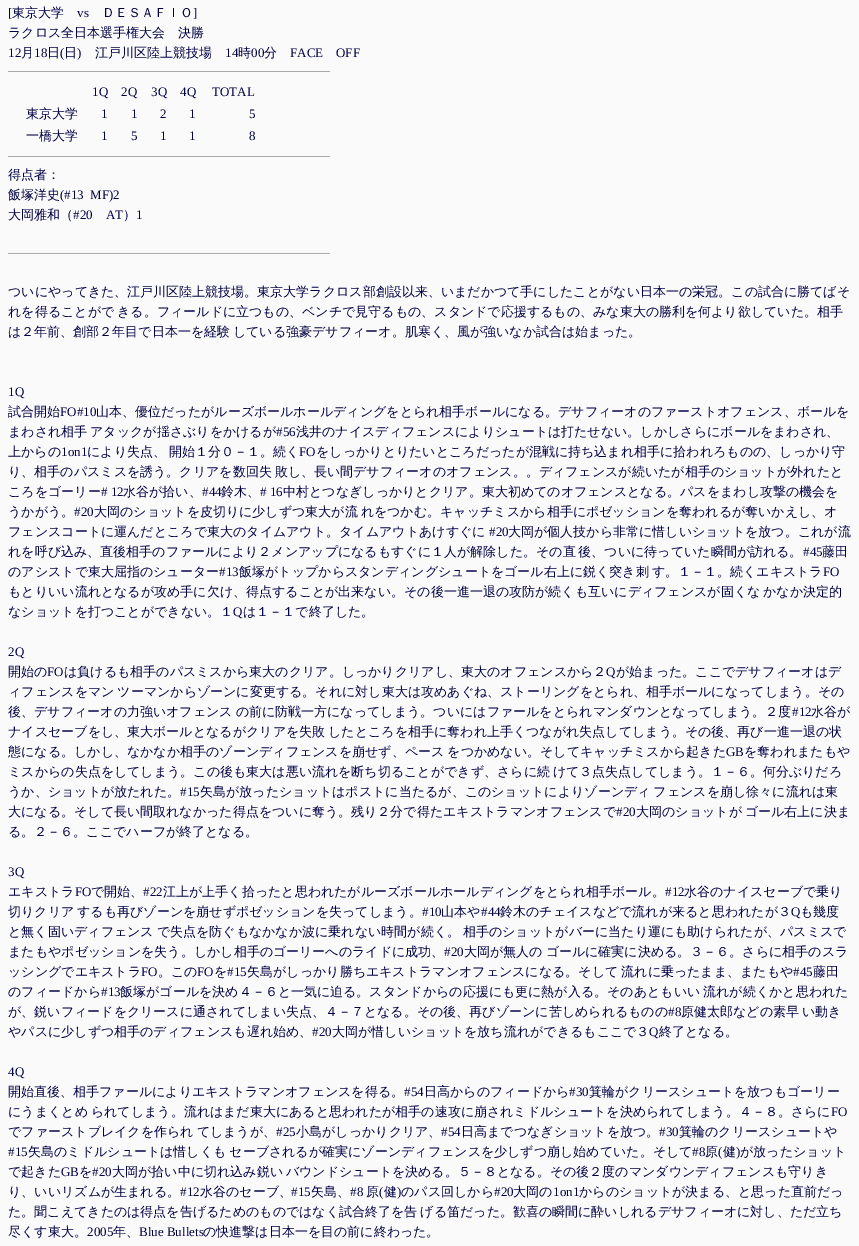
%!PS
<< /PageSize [859 1246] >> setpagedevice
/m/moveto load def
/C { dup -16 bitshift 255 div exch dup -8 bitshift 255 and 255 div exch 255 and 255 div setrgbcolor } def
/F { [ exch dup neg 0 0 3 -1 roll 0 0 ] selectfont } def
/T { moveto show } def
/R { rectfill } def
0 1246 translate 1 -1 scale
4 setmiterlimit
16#FAFAFA C
0 0 859 1246 R
/LiberationSerif-Regular 13 F
16#000044 C
([) 8 17 T
/WenQuanYiZenHei-Medium 13 F
(東京大学) 12 17 T
/LiberationSerif-Regular 13 F
(vs) 77 17 T
/WenQuanYiZenHei-Medium 13 F
(ＤＥＳＡＦＩＯ) 102 17 T
/LiberationSerif-Regular 13 F
(]) 193 17 T
/WenQuanYiZenHei-Medium 13 F
(ラクロス全日本選手権大会　決勝) 8 37 T
/LiberationSerif-Regular 13 F
(12) 8 57 T
/WenQuanYiZenHei-Medium 13 F
(月) 21 57 T
/LiberationSerif-Regular 13 F
(18) 34 57 T
/WenQuanYiZenHei-Medium 13 F
(日) 47 57 T
/LiberationSerif-Regular 13 F
(\() 60 57 T
/WenQuanYiZenHei-Medium 13 F
(日) 64 57 T
/LiberationSerif-Regular 13 F
(\)) 77 57 T
/WenQuanYiZenHei-Medium 13 F
(江戸川区陸上競技場) 95 57 T
/LiberationSerif-Regular 13 F
(14) 225 57 T
/WenQuanYiZenHei-Medium 13 F
(時) 238 57 T
/LiberationSerif-Regular 13 F
(00) 251 57 T
/WenQuanYiZenHei-Medium 13 F
(分) 264 57 T
/LiberationSerif-Regular 13 F
(FACE) 290 57 T
(OFF) 336 57 T
16#AAAAAA C
8 71 322 1 R
16#000044 C
(1Q) 92 96 T
(2Q) 121 96 T
(3Q) 151 96 T
(4Q) 180 96 T
(TOTAL) 212 96 T
/WenQuanYiZenHei-Medium 13 F
(東京大学) 26 118 T
/LiberationSerif-Regular 13 F
(1) 101 118 T
(1) 131 118 T
(2) 160 118 T
(1) 189 118 T
(5) 249 118 T
/WenQuanYiZenHei-Medium 13 F
(一橋大学) 26 140 T
/LiberationSerif-Regular 13 F
(1) 101 140 T
(5) 131 140 T
(1) 160 140 T
(1) 189 140 T
(8) 249 140 T
16#AAAAAA C
8 156 322 1 R
/WenQuanYiZenHei-Medium 13 F
16#000044 C
(得点者：) 8 179 T
(飯塚洋史) 8 199 T
/LiberationSerif-Regular 13 F
(\(#13  MF\)2) 60 199 T
/WenQuanYiZenHei-Medium 13 F
(大岡雅和（) 8 219 T
/LiberationSerif-Regular 13 F
(#20) 73 219 T
(AT) 106 219 T
/WenQuanYiZenHei-Medium 13 F
(）) 123 219 T
/LiberationSerif-Regular 13 F
(1) 136 219 T
16#AAAAAA C
8 253 322 1 R
/WenQuanYiZenHei-Medium 13 F
16#000044 C
(ついにやってきた、江戸川区陸上競技場。東京大学ラクロス部創設以来、いまだかつて手にしたことがない日本一の栄冠。この試合に勝てばそ) 8 296 T
8 316 m -1 0 32 (れを得ることがで きる。フィールドに立つもの、ベンチで見守るもの、スタンドで応援するもの、みな東大の勝利を何より欲していた。相手) widthshow
8 336 m -1 0 32 (は２年前、創部２年目で日本一を経験 している強豪デサフィーオ。肌寒く、風が強いなか試合は始まった。) widthshow
/LiberationSerif-Regular 13 F
(1Q) 8 396 T
/WenQuanYiZenHei-Medium 13 F
(試合開始) 8 416 T
/LiberationSerif-Regular 13 F
(FO#10) 60 416 T
/WenQuanYiZenHei-Medium 13 F
(山本、優位だったがルーズボールホールディングをとられ相手ボールになる。デサフィーオのファーストオフェンス、ボールを) 96 416 T
8 436 m -1 0 32 (まわされ相手 アタックが揺さぶりをかけるが) widthshow
/LiberationSerif-Regular 13 F
(#56) 276 436 T
/WenQuanYiZenHei-Medium 13 F
(浅井のナイスディフェンスによりシュートは打たせない。しかしさらにボールをまわされ、) 296 436 T
(上からの) 8 456 T
/LiberationSerif-Regular 13 F
(1on1) 61 456 T
/WenQuanYiZenHei-Medium 13 F
87 456 m -1 0 32 (により失点、 開始１分０－１。続く) widthshow
/LiberationSerif-Regular 13 F
(FO) 299 456 T
/WenQuanYiZenHei-Medium 13 F
(をしっかりとりたいところだったが混戦に持ち込まれ相手に拾われろものの、しっかり守) 316 456 T
8 476 m -1 0 32 (り、相手のパスミスを誘う。クリアを数回失 敗し、長い間デサフィーオのオフェンス。。ディフェンスが続いたが相手のショットが外れたと) widthshow
(ころをゴーリー) 8 496 T
/LiberationSerif-Regular 13 F
(# 12) 101 496 T
/WenQuanYiZenHei-Medium 13 F
(水谷が拾い、) 123 496 T
/LiberationSerif-Regular 13 F
(#44) 202 496 T
/WenQuanYiZenHei-Medium 13 F
(鈴木、) 221 496 T
/LiberationSerif-Regular 13 F
(# 16) 260 496 T
/WenQuanYiZenHei-Medium 13 F
(中村とつなぎしっかりとクリア。東大初めてのオフェンスとなる。パスをまわし攻撃の機会を) 283 496 T
(うかがう。) 8 516 T
/LiberationSerif-Regular 13 F
(#20) 74 516 T
/WenQuanYiZenHei-Medium 13 F
94 516 m -1 0 32 (大岡のショットを皮切りに少しずつ東大が流 れをつかむ。キャッチミスから相手にポゼッションを奪われるが奪いかえし、オ) widthshow
(フェンスコートに運んだところで東大のタイムアウト。タイムアウトあけすぐに) 8 536 T
/LiberationSerif-Regular 13 F
(#20) 489 536 T
/WenQuanYiZenHei-Medium 13 F
(大岡が個人技から非常に惜しいショットを放つ。これが流) 508 536 T
8 556 m -1 0 32 (れを呼び込み、直後相手のファールにより２メンアップになるもすぐに１人が解除した。その直 後、ついに待っていた瞬間が訪れる。) widthshow
/LiberationSerif-Regular 13 F
(#45) 803 556 T
/WenQuanYiZenHei-Medium 13 F
(藤田) 822 556 T
(のアシストで東大屈指のシューター) 8 576 T
/LiberationSerif-Regular 13 F
(#13) 219 576 T
/WenQuanYiZenHei-Medium 13 F
239 576 m -1 0 32 (飯塚がトップからスタンディングシュートをゴール右上に鋭く突き刺 す。１－１。続くエキストラ) widthshow
/LiberationSerif-Regular 13 F
(FO) 823 576 T
/WenQuanYiZenHei-Medium 13 F
8 596 m -1 0 32 (もとりいい流れとなるが攻め手に欠け、得点することが出来ない。その後一進一退の攻防が続くも互いにディフェンスが固くな かなか決定的) widthshow
(なショットを打つことができない。１) 8 616 T
/LiberationSerif-Regular 13 F
(Q) 233 616 T
/WenQuanYiZenHei-Medium 13 F
(は１－１で終了した。) 243 616 T
/LiberationSerif-Regular 13 F
(2Q) 8 656 T
/WenQuanYiZenHei-Medium 13 F
(開始の) 8 676 T
/LiberationSerif-Regular 13 F
(FO) 47 676 T
/WenQuanYiZenHei-Medium 13 F
(は負けるも相手のパスミスから東大のクリア。しっかりクリアし、東大のオフェンスから２) 64 676 T
/LiberationSerif-Regular 13 F
(Q) 606 676 T
/WenQuanYiZenHei-Medium 13 F
(が始まった。ここでデサフィーオはデ) 616 676 T
8 696 m -1 0 32 (ィフェンスをマン ツーマンからゾーンに変更する。それに対し東大は攻めあぐね、ストーリングをとられ、相手ボールになってしまう。その) widthshow
8 716 m -1 0 32 (後、デサフィーオの力強いオフェンス の前に防戦一方になってしまう。ついにはファールをとられマンダウンとなってしまう。２度) widthshow
/LiberationSerif-Regular 13 F
(#12) 792 716 T
/WenQuanYiZenHei-Medium 13 F
(水谷が) 811 716 T
8 736 m -1 0 32 (ナイスセーブをし、東大ボールとなるがクリアを失敗 したところを相手に奪われ上手くつながれ失点してしまう。その後、再び一進一退の状) widthshow
8 756 m -1 0 32 (態になる。しかし、なかなか相手のゾーンディフェンスを崩せず、ペース をつかめない。そしてキャッチミスから起きた) widthshow
/LiberationSerif-Regular 13 F
(GB) 726 756 T
/WenQuanYiZenHei-Medium 13 F
(を奪われまたもや) 744 756 T
8 776 m -1 0 32 (ミスからの失点をしてしまう。この後も東大は悪い流れを断ち切ることができず、さらに続 けて３点失点してしまう。１－６。何分ぶりだろ) widthshow
(うか、ショットが放たれた。) 8 796 T
/LiberationSerif-Regular 13 F
(#15) 180 796 T
/WenQuanYiZenHei-Medium 13 F
200 796 m -1 0 32 (矢島が放ったショットはポストに当たるが、このショットによりゾーンディ フェンスを崩し徐々に流れは東) widthshow
(大になる。そして長い間取れなかった得点をついに奪う。残り２分で得たエキストラマンオフェンスで) 8 816 T
/LiberationSerif-Regular 13 F
(#20) 616 816 T
/WenQuanYiZenHei-Medium 13 F
636 816 m -1 0 32 (大岡のショットが ゴール右上に決ま) widthshow
(る。２－６。ここでハーフが終了となる。) 8 836 T
/LiberationSerif-Regular 13 F
(3Q) 8 876 T
/WenQuanYiZenHei-Medium 13 F
(エキストラ) 8 896 T
/LiberationSerif-Regular 13 F
(FO) 75 896 T
/WenQuanYiZenHei-Medium 13 F
(で開始、) 91 896 T
/LiberationSerif-Regular 13 F
(#22) 143 896 T
/WenQuanYiZenHei-Medium 13 F
(江上が上手く拾ったと思われたがルーズボールホールディングをとられ相手ボール。) 163 896 T
/LiberationSerif-Regular 13 F
(#12) 665 896 T
/WenQuanYiZenHei-Medium 13 F
(水谷のナイスセーブで乗り) 684 896 T
8 916 m -1 0 32 (切りクリア するも再びゾーンを崩せずポゼッションを失ってしまう。) widthshow
/LiberationSerif-Regular 13 F
(#10) 422 916 T
/WenQuanYiZenHei-Medium 13 F
(山本や) 441 916 T
/LiberationSerif-Regular 13 F
(#44) 481 916 T
/WenQuanYiZenHei-Medium 13 F
(鈴木のチェイスなどで流れが来ると思われたが３) 500 916 T
/LiberationSerif-Regular 13 F
(Q) 791 916 T
/WenQuanYiZenHei-Medium 13 F
(も幾度) 800 916 T
8 936 m -1 0 32 (と無く固いディフェンス で失点を防ぐもなかなか波に乗れない時間が続く。 相手のショットがバーに当たり運にも助けられたが、パスミスで) widthshow
(またもやポゼッションを失う。しかし相手のゴーリーへのライドに成功、) 8 956 T
/LiberationSerif-Regular 13 F
(#20) 444 956 T
/WenQuanYiZenHei-Medium 13 F
464 956 m -1 0 32 (大岡が無人の ゴールに確実に決める。３－６。さらに相手のスラ) widthshow
(ッシングでエキストラ) 8 976 T
/LiberationSerif-Regular 13 F
(FO) 141 976 T
/WenQuanYiZenHei-Medium 13 F
(。この) 158 976 T
/LiberationSerif-Regular 13 F
(FO) 197 976 T
/WenQuanYiZenHei-Medium 13 F
(を) 214 976 T
/LiberationSerif-Regular 13 F
(#15) 227 976 T
/WenQuanYiZenHei-Medium 13 F
247 976 m -1 0 32 (矢島がしっかり勝ちエキストラマンオフェンスになる。そして 流れに乗ったまま、またもや) widthshow
/LiberationSerif-Regular 13 F
(#45) 793 976 T
/WenQuanYiZenHei-Medium 13 F
(藤田) 813 976 T
(のフィードから) 8 996 T
/LiberationSerif-Regular 13 F
(#13) 101 996 T
/WenQuanYiZenHei-Medium 13 F
120 996 m -1 0 32 (飯塚がゴールを決め４－６と一気に迫る。スタンドからの応援にも更に熱が入る。そのあともいい 流れが続くかと思われた) widthshow
(が、鋭いフィードをクリースに通されてしまい失点、４－７となる。その後、再びゾーンに苦しめられるものの) 8 1016 T
/LiberationSerif-Regular 13 F
(#8) 668 1016 T
/WenQuanYiZenHei-Medium 13 F
681 1016 m -1 0 32 (原健太郎などの素早 い動き) widthshow
(やパスに少しずつ相手のディフェンスも遅れ始め、) 8 1036 T
/LiberationSerif-Regular 13 F
(#20) 312 1036 T
/WenQuanYiZenHei-Medium 13 F
(大岡が惜しいショットを放ち流れができるもここで３) 332 1036 T
/LiberationSerif-Regular 13 F
(Q) 649 1036 T
/WenQuanYiZenHei-Medium 13 F
(終了となる。) 659 1036 T
/LiberationSerif-Regular 13 F
(4Q) 8 1076 T
/WenQuanYiZenHei-Medium 13 F
(開始直後、相手ファールによりエキストラマンオフェンスを得る。) 8 1096 T
/LiberationSerif-Regular 13 F
(#54) 404 1096 T
/WenQuanYiZenHei-Medium 13 F
(日高からのフィードから) 424 1096 T
/LiberationSerif-Regular 13 F
(#30) 569 1096 T
/WenQuanYiZenHei-Medium 13 F
(箕輪がクリースシュートを放つもゴーリー) 589 1096 T
8 1116 m -1 0 32 (にうまくとめ られてしまう。流れはまだ東大にあると思われたが相手の速攻に崩されミドルシュートを決められてしまう。４－８。さらに) widthshow
/LiberationSerif-Regular 13 F
(FO) 831 1116 T
/WenQuanYiZenHei-Medium 13 F
8 1136 m -1 0 32 (でファーストブレイクを作られ てしまうが、) widthshow
/LiberationSerif-Regular 13 F
(#25) 276 1136 T
/WenQuanYiZenHei-Medium 13 F
(小島がしっかりクリア、) 296 1136 T
/LiberationSerif-Regular 13 F
(#54) 441 1136 T
/WenQuanYiZenHei-Medium 13 F
(日高までつなぎショットを放つ。) 461 1136 T
/LiberationSerif-Regular 13 F
(#30) 659 1136 T
/WenQuanYiZenHei-Medium 13 F
(箕輪のクリースシュートや) 679 1136 T
/LiberationSerif-Regular 13 F
(#15) 8 1156 T
/WenQuanYiZenHei-Medium 13 F
28 1156 m -1 0 32 (矢島のミドルシュートは惜しくも セーブされるが確実にゾーンディフェンスを少しずつ崩し始めていた。そして) widthshow
/LiberationSerif-Regular 13 F
(#8) 692 1156 T
/WenQuanYiZenHei-Medium 13 F
(原) 705 1156 T
/LiberationSerif-Regular 13 F
(\() 718 1156 T
/WenQuanYiZenHei-Medium 13 F
(健) 723 1156 T
/LiberationSerif-Regular 13 F
(\)) 736 1156 T
/WenQuanYiZenHei-Medium 13 F
(が放ったショット) 740 1156 T
(で起きた) 8 1176 T
/LiberationSerif-Regular 13 F
(GB) 61 1176 T
/WenQuanYiZenHei-Medium 13 F
(を) 79 1176 T
/LiberationSerif-Regular 13 F
(#20) 92 1176 T
/WenQuanYiZenHei-Medium 13 F
112 1176 m -1 0 32 (大岡が拾い中に切れ込み鋭い バウンドシュートを決める。５－８となる。その後２度のマンダウンディフェンスも守りき) widthshow
(り、いいリズムが生まれる。) 8 1196 T
/LiberationSerif-Regular 13 F
(#12) 180 1196 T
/WenQuanYiZenHei-Medium 13 F
(水谷のセーブ、) 200 1196 T
/LiberationSerif-Regular 13 F
(#15) 291 1196 T
/WenQuanYiZenHei-Medium 13 F
(矢島、) 311 1196 T
/LiberationSerif-Regular 13 F
(#8) 350 1196 T
/WenQuanYiZenHei-Medium 13 F
(原) 366 1196 T
/LiberationSerif-Regular 13 F
(\() 379 1196 T
/WenQuanYiZenHei-Medium 13 F
(健) 384 1196 T
/LiberationSerif-Regular 13 F
(\)) 397 1196 T
/WenQuanYiZenHei-Medium 13 F
(のパス回しから) 401 1196 T
/LiberationSerif-Regular 13 F
(#20) 494 1196 T
/WenQuanYiZenHei-Medium 13 F
(大岡の) 513 1196 T
/LiberationSerif-Regular 13 F
(1on1) 553 1196 T
/WenQuanYiZenHei-Medium 13 F
(からのショットが決まる、と思った直前だっ) 579 1196 T
8 1216 m -1 0 32 (た。聞こえてきたのは得点を告げるためのものではなく試合終了を告 げる笛だった。歓喜の瞬間に酔いしれるデサフィーオに対し、ただ立ち) widthshow
(尽くす東大。) 8 1236 T
/LiberationSerif-Regular 13 F
(2005) 87 1236 T
/WenQuanYiZenHei-Medium 13 F
(年、) 113 1236 T
/LiberationSerif-Regular 13 F
(Blue Bullets) 139 1236 T
/WenQuanYiZenHei-Medium 13 F
(の快進撃は日本一を目の前に終わった。) 203 1236 T
showpage
